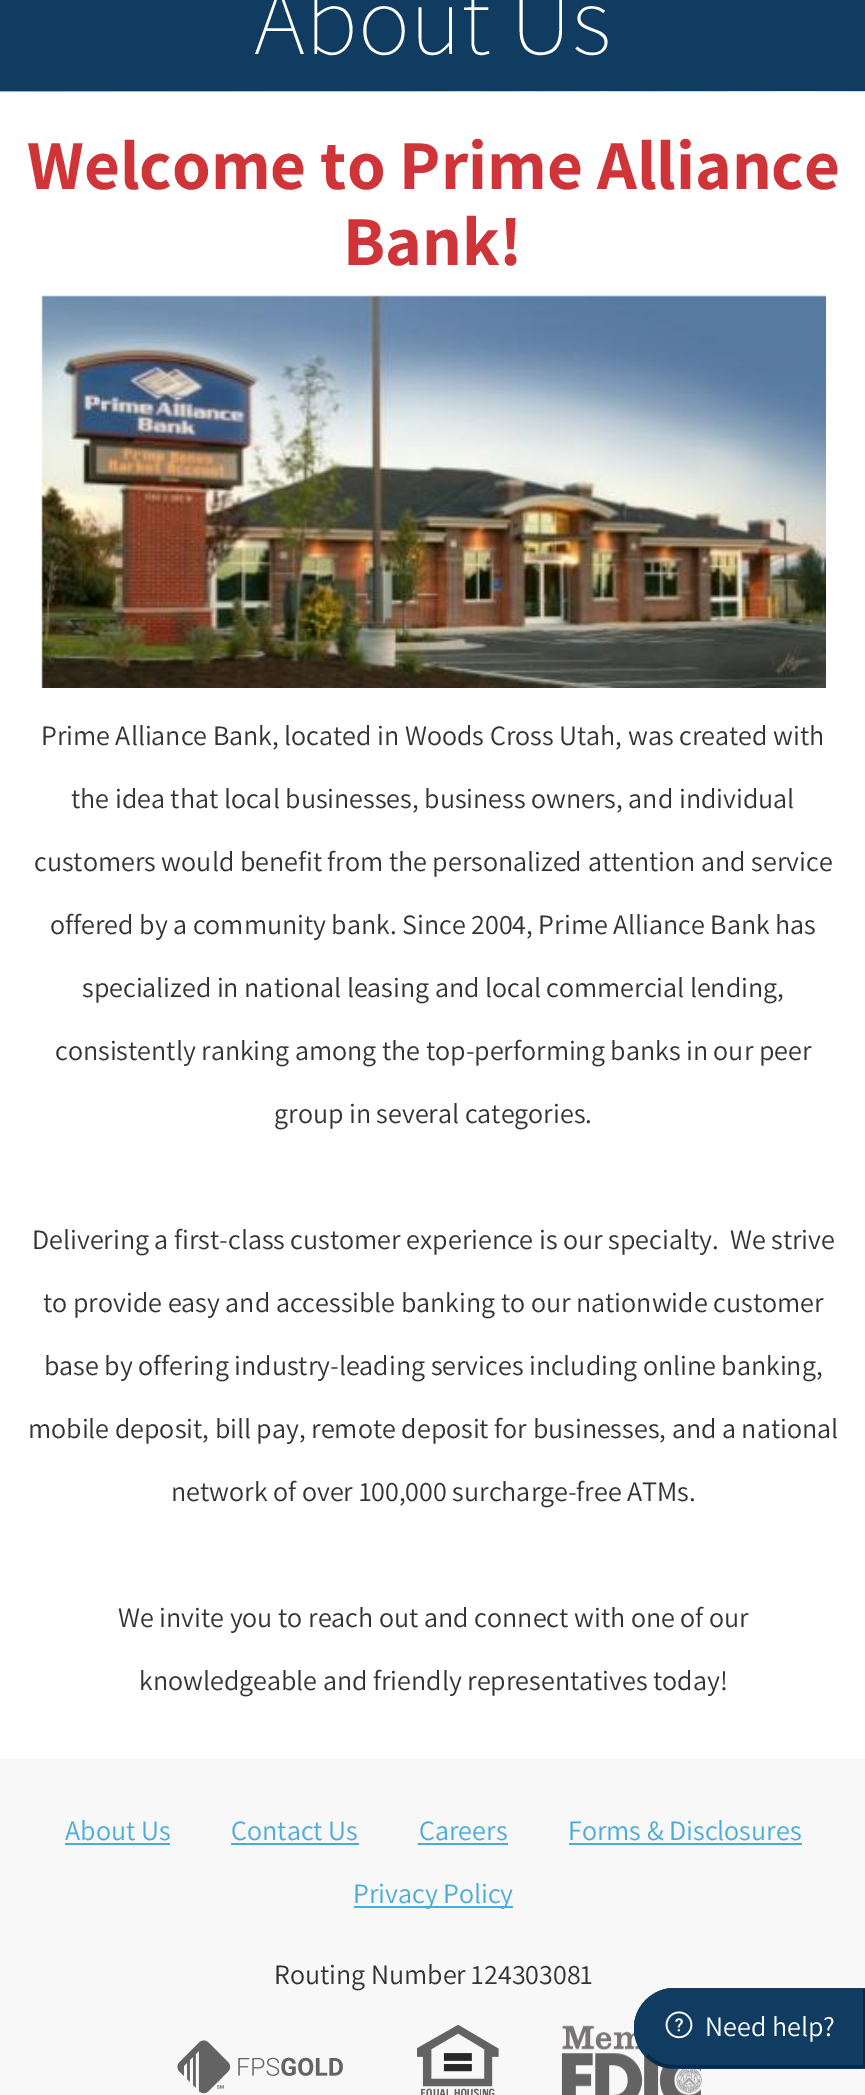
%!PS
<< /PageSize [865 2095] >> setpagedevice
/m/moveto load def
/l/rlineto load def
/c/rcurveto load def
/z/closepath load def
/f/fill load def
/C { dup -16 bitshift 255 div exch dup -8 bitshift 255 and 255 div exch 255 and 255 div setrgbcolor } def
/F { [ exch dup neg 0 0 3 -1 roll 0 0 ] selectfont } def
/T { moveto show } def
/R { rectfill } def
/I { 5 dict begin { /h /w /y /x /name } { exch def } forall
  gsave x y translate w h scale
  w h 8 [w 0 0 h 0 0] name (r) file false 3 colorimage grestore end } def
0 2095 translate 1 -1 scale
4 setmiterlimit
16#FFFFFF C
0 0 865 2095 R
(1.rgb) 0 91 865 1 I
16#0F3C60 C
0 0 865 91 R
/Assistant-ExtraLight 98 F
16#FFFFFF C
(About Us) 254 54 T
/Assistant-Bold 70 F
16#CF3438 C
(Welcome to Prime Alliance) 27 189 T
(Bank!) 343 265 T
(2.rgb) 41 295 785 393 I
/Assistant-Regular 28 F
16#333333 C
(Prime Alliance Bank, located in Woods Cross Utah, was created with) 41 745 T
(the idea that local businesses, business owners, and individual) 71 808 T
(customers would benefit from the personalized attention and service) 34 871 T
(offered by a community bank. Since 2004, Prime Alliance Bank has) 50 934 T
(specialized in national leasing and local commercial lending,) 82 997 T
(consistently ranking among the top-performing banks in our peer) 55 1060 T
(group in several categories.) 274 1123 T
(Delivering a first-class customer experience is our specialty.  We strive) 32 1249 T
(to provide easy and accessible banking to our nationwide customer) 43 1312 T
(base by offering industry-leading services including online banking,) 44 1375 T
(mobile deposit, bill pay, remote deposit for businesses, and a national) 28 1438 T
(network of over 100,000 surcharge-free ATMs.) 171 1501 T
(We invite you to reach out and connect with one of our) 118 1627 T
(knowledgeable and friendly representatives today!) 139 1690 T
16#F8F8F8 C
0 1759 865 336 R
16#4BABD9 C
(About Us) 65 1840 T
65 1843 105 2 R
(Contact Us) 231 1840 T
231 1843 128 2 R
(Careers) 419 1840 T
418 1843 90 2 R
(Forms & Disclosures) 568 1840 T
569 1843 233 2 R
354 1906 159 2 R
(Privacy Policy) 353 1903 T
16#333333 C
(Routing Number 124303081) 274 1984 T
(3.rgb) 177 2040 166 54 I
(4.rgb) 417 2025 82 70 I
(5.rgb) 561 2025 141 70 I
16#0F3C60 C
674.5 1988 m 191.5 0 l 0 81 l -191.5 0 l -22.5 0 -40.5 -18 -40.5 -40.5 c 0 -22.5 18 -40.5 40.5 -40.5 c z f
674 1988 m -11 0 -21 5 -28 12 c 2 2 l 6 -6 16 -10 26 -10 c 188 0 l 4 -4 l z f
16#0A2840 C
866 1988 m 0 80 l -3 -3 l 0 -73 l -1 0 l z f
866 2068 m -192 0 l -11 0 -21 -4 -28 -12 c 2 -2 l 6 7 16 11 26 11 c 189 0 l z f
16#0F3C60 C
646 2000 m -16 15 -16 41 0 56 c 2 -2 l -14 -14 -15 -38 0 -52 c z f
(6.rgb) 665 2011 28 28 I
16#FFFFFF C
(Need help?) 705 2036 T
showpage
